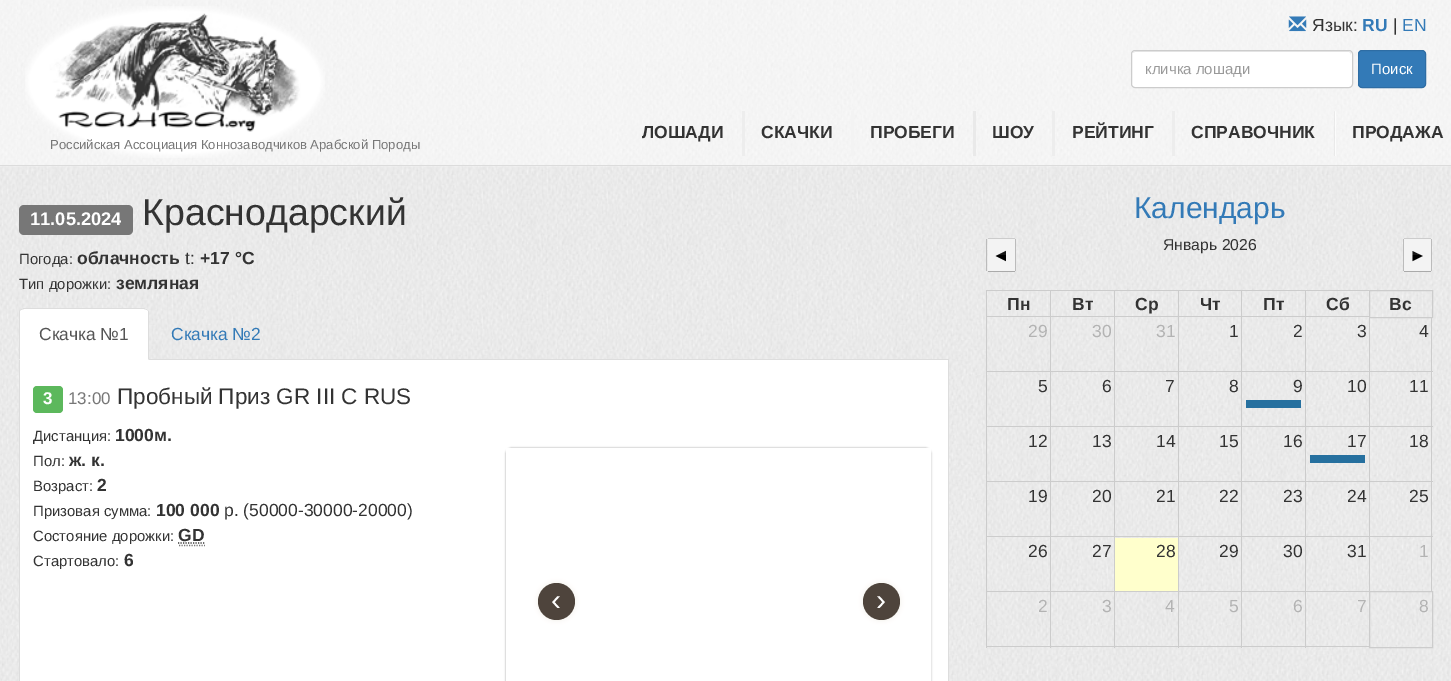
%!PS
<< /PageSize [1451 681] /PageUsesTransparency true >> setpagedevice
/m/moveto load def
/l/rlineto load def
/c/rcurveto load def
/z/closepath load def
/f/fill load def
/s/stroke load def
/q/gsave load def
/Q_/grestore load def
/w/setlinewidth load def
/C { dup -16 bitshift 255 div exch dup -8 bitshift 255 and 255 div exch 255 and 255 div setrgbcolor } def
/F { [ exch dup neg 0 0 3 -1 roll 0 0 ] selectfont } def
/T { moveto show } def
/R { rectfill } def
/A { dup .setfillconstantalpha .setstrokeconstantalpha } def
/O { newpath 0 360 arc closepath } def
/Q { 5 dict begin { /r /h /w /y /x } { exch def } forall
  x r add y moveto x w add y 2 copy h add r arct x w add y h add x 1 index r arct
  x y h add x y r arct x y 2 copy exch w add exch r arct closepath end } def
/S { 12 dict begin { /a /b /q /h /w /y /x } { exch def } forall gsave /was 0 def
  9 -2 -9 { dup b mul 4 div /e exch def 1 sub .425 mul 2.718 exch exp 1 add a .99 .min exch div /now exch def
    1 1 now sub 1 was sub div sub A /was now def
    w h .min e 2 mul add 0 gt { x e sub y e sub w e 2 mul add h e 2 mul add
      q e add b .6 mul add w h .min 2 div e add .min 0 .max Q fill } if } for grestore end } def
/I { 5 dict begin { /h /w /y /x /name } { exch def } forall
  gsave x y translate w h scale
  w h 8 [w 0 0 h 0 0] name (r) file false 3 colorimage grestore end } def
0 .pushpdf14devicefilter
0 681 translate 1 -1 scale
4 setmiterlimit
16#FFFFFF C
0 0 1451 681 R
(1.rgb) 0 166 1451 515 I
(2.rgb) 0 0 1451 167 I
16#DCDCDC C
0 165 1451 1 R
(3.rgb) 1288 16 19 16 I
/LiberationSans-Regular 17.5 F
16#333333 C
(Язык:) 1312 31 T
/LiberationSans-Bold 17.5 F
16#337AB7 C
(RU) 1362 31 T
/LiberationSans-Regular 17.5 F
16#333333 C
(|) 1393 31 T
16#337AB7 C
(EN) 1402 31 T
16#FFFFFF C
1131 50 222 38 4 Q f
16#ECECEC C
1135 52 m 214 0 l 1 0 2 2 2 3 c 0 -1 l 0 -2 -1 -3 -3 -3 c -212 0 l -2 0 -3 1 -3 2 c z f
16#CCCCCC C
1131.5 50.5 221 37 3.5 Q s
/LiberationSans-Regular 15 F
16#999999 C
(кличка лошади) 1145 74 T
16#337AB7 C
1358.5 50.5 67 37 3.5 Q q f Q_
16#2E6DA4 C
s
16#FFFFFF C
(Поиск) 1371 74 T
/LiberationSans-Bold 17.5 F
16#333333 C
(ЛОШАДИ) 642 138 T
16#EDEDED C
742 111 3 45 R
16#333333 C
(СКАЧКИ) 761 138 T
16#F3F3F3 C
851 111 3 45 R
16#333333 C
(ПРОБЕГИ) 870 138 T
16#E9E9E9 C
973 111 3 45 R
16#333333 C
(ШОУ) 992 138 T
16#EDEDED C
1052 111 3 45 R
16#333333 C
(РЕЙТИНГ) 1072 138 T
16#EDEDED C
1172 111 3 45 R
16#333333 C
(СПРАВОЧНИК) 1191 138 T
(4.rgb) 1334 111 2 45 I
(ПРОДАЖА) 1352 138 T
(5.rgb) 25 6 300 152 I
/LiberationSans-Regular 13.1 F
16#777777 C
(Российская Ассоциация Коннозаводчиков Арабской Породы) 50 149 T
19 205 114 30 5 Q f
/LiberationSans-Bold 18.25 F
16#FFFFFF C
(11.05.2024) 30 225 T
/LiberationSans-Regular 37.5 F
16#333333 C
(Краснодарский) 142 225 T
/LiberationSans-Regular 14.9 F
(Погода:) 19 264 T
/LiberationSans-Bold 17.5 F
(облачность) 77 264 T
/LiberationSans-Regular 17.5 F
(t:) 185 264 T
/LiberationSans-Bold 17.5 F
(+17 °C) 200 264 T
/LiberationSans-Regular 14.9 F
(Тип дорожки:) 19 289 T
/LiberationSans-Bold 17.5 F
(земляная) 116 289 T
16#DDDDDD C
149 359 800 1 R
16#FFFFFF C
24 308 m 120 0 l 3 0 5 2 5 5 c 0 47 l -130 0 l 0 -47 l 0 -3 2 -5 5 -5 c z f
16#DDDDDD C
24 308 m -4 1 l 1 1 l 3 -1 l 120 0 l 3 1 l 0 -1 l -3 -1 l z f
147 309 m 2 2 l 0 49 l -1 -1 l 0 -48 l -1 -1 l z f
20 309 m -1 2 l 0 49 l 1 -1 l 0 -48 l 1 -1 l z f
/LiberationSans-Regular 17.5 F
16#555555 C
(Скачка №1) 39 340 T
16#337AB7 C
(Скачка №2) 171 340 T
16#FFFFFF C
20 360 928 321 R
16#DDDDDD C
948 360 1 321 R
19 360 1 321 R
16#5CB85C C
33 386 30 27 4 Q f
/LiberationSans-Bold 17 F
16#FFFFFF C
(3) 43 404 T
/LiberationSans-Regular 17 F
16#777777 C
(13:00) 68 404 T
/LiberationSans-Regular 22.5 F
16#333333 C
(Пробный Приз GR III C RUS) 117 404 T
/LiberationSans-Regular 14.9 F
(Дистанция:) 33 441 T
/LiberationSans-Bold 17.5 F
(1000м.) 115 441 T
/LiberationSans-Regular 14.9 F
(Пол:) 33 466 T
/LiberationSans-Bold 17.5 F
(ж. к.) 69 466 T
/LiberationSans-Regular 14.9 F
(Возраст:) 33 491 T
/LiberationSans-Bold 17.5 F
(2) 97 491 T
/LiberationSans-Regular 14.9 F
(Призовая сумма:) 33 516 T
/LiberationSans-Bold 17.5 F
(100 000) 156 516 T
/LiberationSans-Regular 17.5 F
(р. \(50000-30000-20000\)) 224 516 T
/LiberationSans-Regular 14.9 F
(Состояние дорожки:) 33 541 T
/LiberationSans-Bold 17.5 F
(GD) 178 541 T
16#777777 C
1.2 w
[1.25 1.25] 0 setdash
179 545.5 m 26 0 l s
16#333333 C
178 543 m 26.5 0 l s
/LiberationSans-Regular 14.9 F
(Стартовало:) 33 566 T
/LiberationSans-Bold 17.5 F
(6) 124 566 T
q
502 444 m 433 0 l 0 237 l -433 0 l z 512 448 m 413 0 l 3.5 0 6 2.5 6 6 c 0 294 l 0 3.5 -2.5 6 -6 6 c -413 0 l -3.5 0 -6 -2.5 -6 -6 c 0 -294 l 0 -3.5 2.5 -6 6 -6 c z eoclip newpath
16#999999 C
506 448 425 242 6 1 1 S
Q_
16#FFFFFF C
13 w
[] 0 setdash
512.5 454.5 412 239 rectstroke
16#F0EFE7 C
538 583 37 37 18.5 2.5 1 S
16#4E443C C
556.5 601.5 18.5 O f
/LiberationSans-Regular 30 F
16#FFFFFF C
(‹) 551 610 T
16#F0EFE7 C
863 583 37 37 18.5 2.5 1 S
16#4E443C C
881.5 601.5 18.5 O f
16#FFFFFF C
(›) 876 610 T
16#337AB7 C
(Календарь) 1134 218 T
/LiberationSans-Regular 15.75 F
16#333333 C
(Январь 2026) 1163 250 T
16#F3F3F3 C
988 239 27 32 R
16#CCCCCC C
988 238 27 1 R
16#AAAAAA C
988 271 27 1 R
16#BBBBBB C
1015 239 1 32 R
986 239 1 32 R
/LiberationSans-Regular 17.5 F
16#000000 C
(◄) 992 261 T
0.09 A
16#FFFFFF C
998 251 9 4 R
1 A
16#F3F3F3 C
1404 239 27 32 R
16#CCCCCC C
1404 238 27 1 R
16#AAAAAA C
1404 271 27 1 R
16#BBBBBB C
1431 239 1 32 R
1403 239 1 32 R
16#000000 C
(►) 1409 261 T
0.09 A
16#FFFFFF C
1412 251 9 4 R
1 A
16#CCCCCC C
986 290 383 1 R
986 316 383 1 R
986 290 1 81 R
/LiberationSans-Bold 17.5 F
16#333333 C
(Пн) 1007 310 T
16#CCCCCC C
1050 290 1 81 R
16#333333 C
(Вт) 1072 310 T
16#CCCCCC C
1114 290 1 81 R
16#333333 C
(Ср) 1135 310 T
16#CCCCCC C
1178 290 1 81 R
16#333333 C
(Чт) 1200 310 T
16#CCCCCC C
1241 290 1 81 R
16#333333 C
(Пт) 1263 310 T
16#CCCCCC C
1305 290 1 81 R
16#333333 C
(Сб) 1326 310 T
16#CCCCCC C
1 w
1369.5 290.5 63 27 rectstroke
16#333333 C
(Вс) 1389 310 T
/LiberationSans-Regular 17.5 F
16#B3B3B3 C
(29) 1028 337 T
(30) 1092 337 T
(31) 1156 337 T
16#333333 C
(1) 1229 337 T
(2) 1293 337 T
(3) 1357 337 T
16#CCCCCC C
1431 318 1 53 R
1369 318 1 53 R
16#333333 C
(4) 1419 337 T
16#CCCCCC C
986 371 447 1 R
986 371 1 55 R
16#333333 C
(5) 1038 392 T
16#CCCCCC C
1050 371 1 55 R
16#333333 C
(6) 1102 392 T
16#CCCCCC C
1114 371 1 55 R
16#333333 C
(7) 1165 392 T
16#CCCCCC C
1178 371 1 55 R
16#333333 C
(8) 1229 392 T
16#CCCCCC C
1241 371 1 55 R
16#333333 C
(9) 1293 392 T
16#CCCCCC C
1305 371 1 55 R
16#333333 C
(10) 1347 392 T
16#CCCCCC C
1431 371 1 55 R
1369 371 1 55 R
16#333333 C
(11) 1409 392 T
16#CCCCCC C
986 426 447 1 R
986 426 1 55 R
16#333333 C
(12) 1028 447 T
16#CCCCCC C
1050 426 1 55 R
16#333333 C
(13) 1092 447 T
16#CCCCCC C
1114 426 1 55 R
16#333333 C
(14) 1156 447 T
16#CCCCCC C
1178 426 1 55 R
16#333333 C
(15) 1219 447 T
16#CCCCCC C
1241 426 1 55 R
16#333333 C
(16) 1283 447 T
16#CCCCCC C
1305 426 1 55 R
16#333333 C
(17) 1347 447 T
16#CCCCCC C
1431 426 1 55 R
1369 426 1 55 R
16#333333 C
(18) 1409 447 T
16#CCCCCC C
986 481 447 1 R
986 481 1 55 R
16#333333 C
(19) 1028 502 T
16#CCCCCC C
1050 481 1 55 R
16#333333 C
(20) 1092 502 T
16#CCCCCC C
1114 481 1 55 R
16#333333 C
(21) 1156 502 T
16#CCCCCC C
1178 481 1 55 R
16#333333 C
(22) 1219 502 T
16#CCCCCC C
1241 481 1 55 R
16#333333 C
(23) 1283 502 T
16#CCCCCC C
1305 481 1 55 R
16#333333 C
(24) 1347 502 T
16#CCCCCC C
1431 481 1 55 R
1369 481 1 55 R
16#333333 C
(25) 1409 502 T
16#CCCCCC C
986 536 447 1 R
986 536 1 55 R
16#333333 C
(26) 1028 557 T
16#CCCCCC C
1050 536 1 55 R
16#333333 C
(27) 1092 557 T
16#FFFFCC C
1115 538 63 53 R
16#CCCCCC C
1114 536 1 55 R
16#333333 C
(28) 1156 557 T
16#CCCCCC C
1178 536 1 55 R
16#333333 C
(29) 1219 557 T
16#CCCCCC C
1241 536 1 55 R
16#333333 C
(30) 1283 557 T
16#CCCCCC C
1305 536 1 55 R
16#333333 C
(31) 1347 557 T
16#CCCCCC C
1431 536 1 55 R
1369 536 1 55 R
16#B3B3B3 C
(1) 1419 557 T
16#CCCCCC C
986 591 383 1 R
986 646 383 1 R
986 591 1 57 R
16#B3B3B3 C
(2) 1038 612 T
16#CCCCCC C
1050 591 1 57 R
16#B3B3B3 C
(3) 1102 612 T
16#CCCCCC C
1114 591 1 57 R
16#B3B3B3 C
(4) 1165 612 T
16#CCCCCC C
1178 591 1 57 R
16#B3B3B3 C
(5) 1229 612 T
16#CCCCCC C
1241 591 1 57 R
16#B3B3B3 C
(6) 1293 612 T
16#CCCCCC C
1305 591 1 57 R
16#B3B3B3 C
(7) 1357 612 T
16#CCCCCC C
1369.5 591.5 63 56 rectstroke
16#B3B3B3 C
(8) 1419 612 T
16#26709F C
1246 400 55 8 R
1310 455 55 8 R
.poppdf14devicefilter showpage
